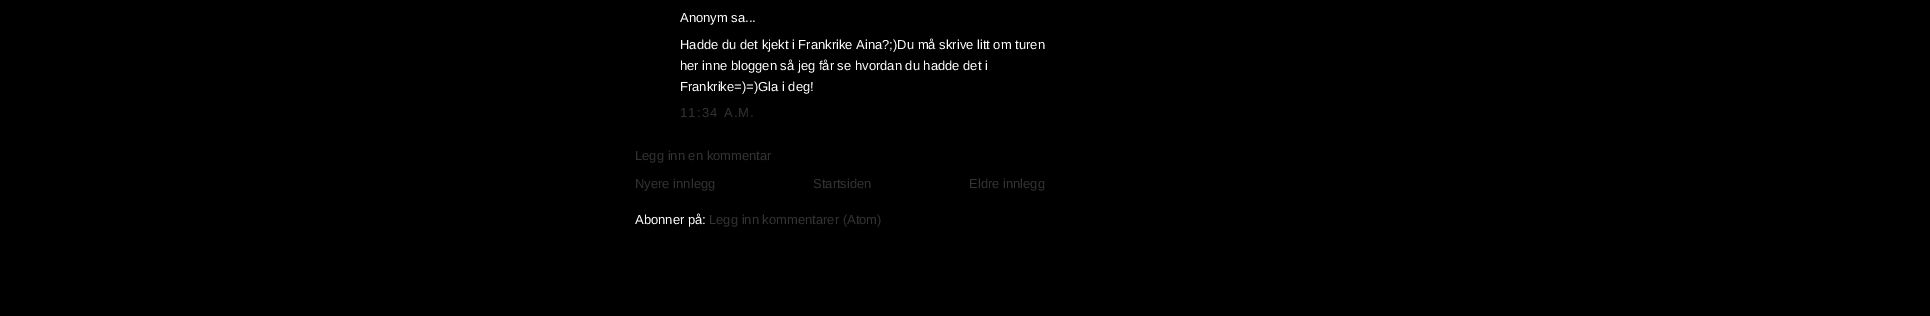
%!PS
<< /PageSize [1930 316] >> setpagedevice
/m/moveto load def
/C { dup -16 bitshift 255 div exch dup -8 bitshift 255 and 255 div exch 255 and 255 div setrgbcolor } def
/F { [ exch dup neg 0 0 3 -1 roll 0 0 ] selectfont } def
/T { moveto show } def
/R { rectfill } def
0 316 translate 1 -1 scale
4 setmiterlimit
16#000000 C
0 0 1930 316 R
/LiberationSans-Regular 13 F
16#FFFFFF C
(Anonym sa...) 680 22 T
(Hadde du det kjekt i Frankrike Aina?;\)Du må skrive litt om turen) 680 49 T
(her inne bloggen så jeg får se hvordan du hadde det i) 680 70 T
(Frankrike=\)=\)Gla i deg!) 680 91 T
16#333333 C
680 117 m 1.25 0 (11:34 A.M.) ashow
(Legg inn en kommentar) 635 160 T
(Nyere innlegg) 635 188 T
(Startsiden) 813 188 T
(Eldre innlegg) 969 188 T
16#FFFFFF C
(Abonner på:) 635 224 T
16#333333 C
(Legg inn kommentarer \(Atom\)) 709 224 T
showpage
